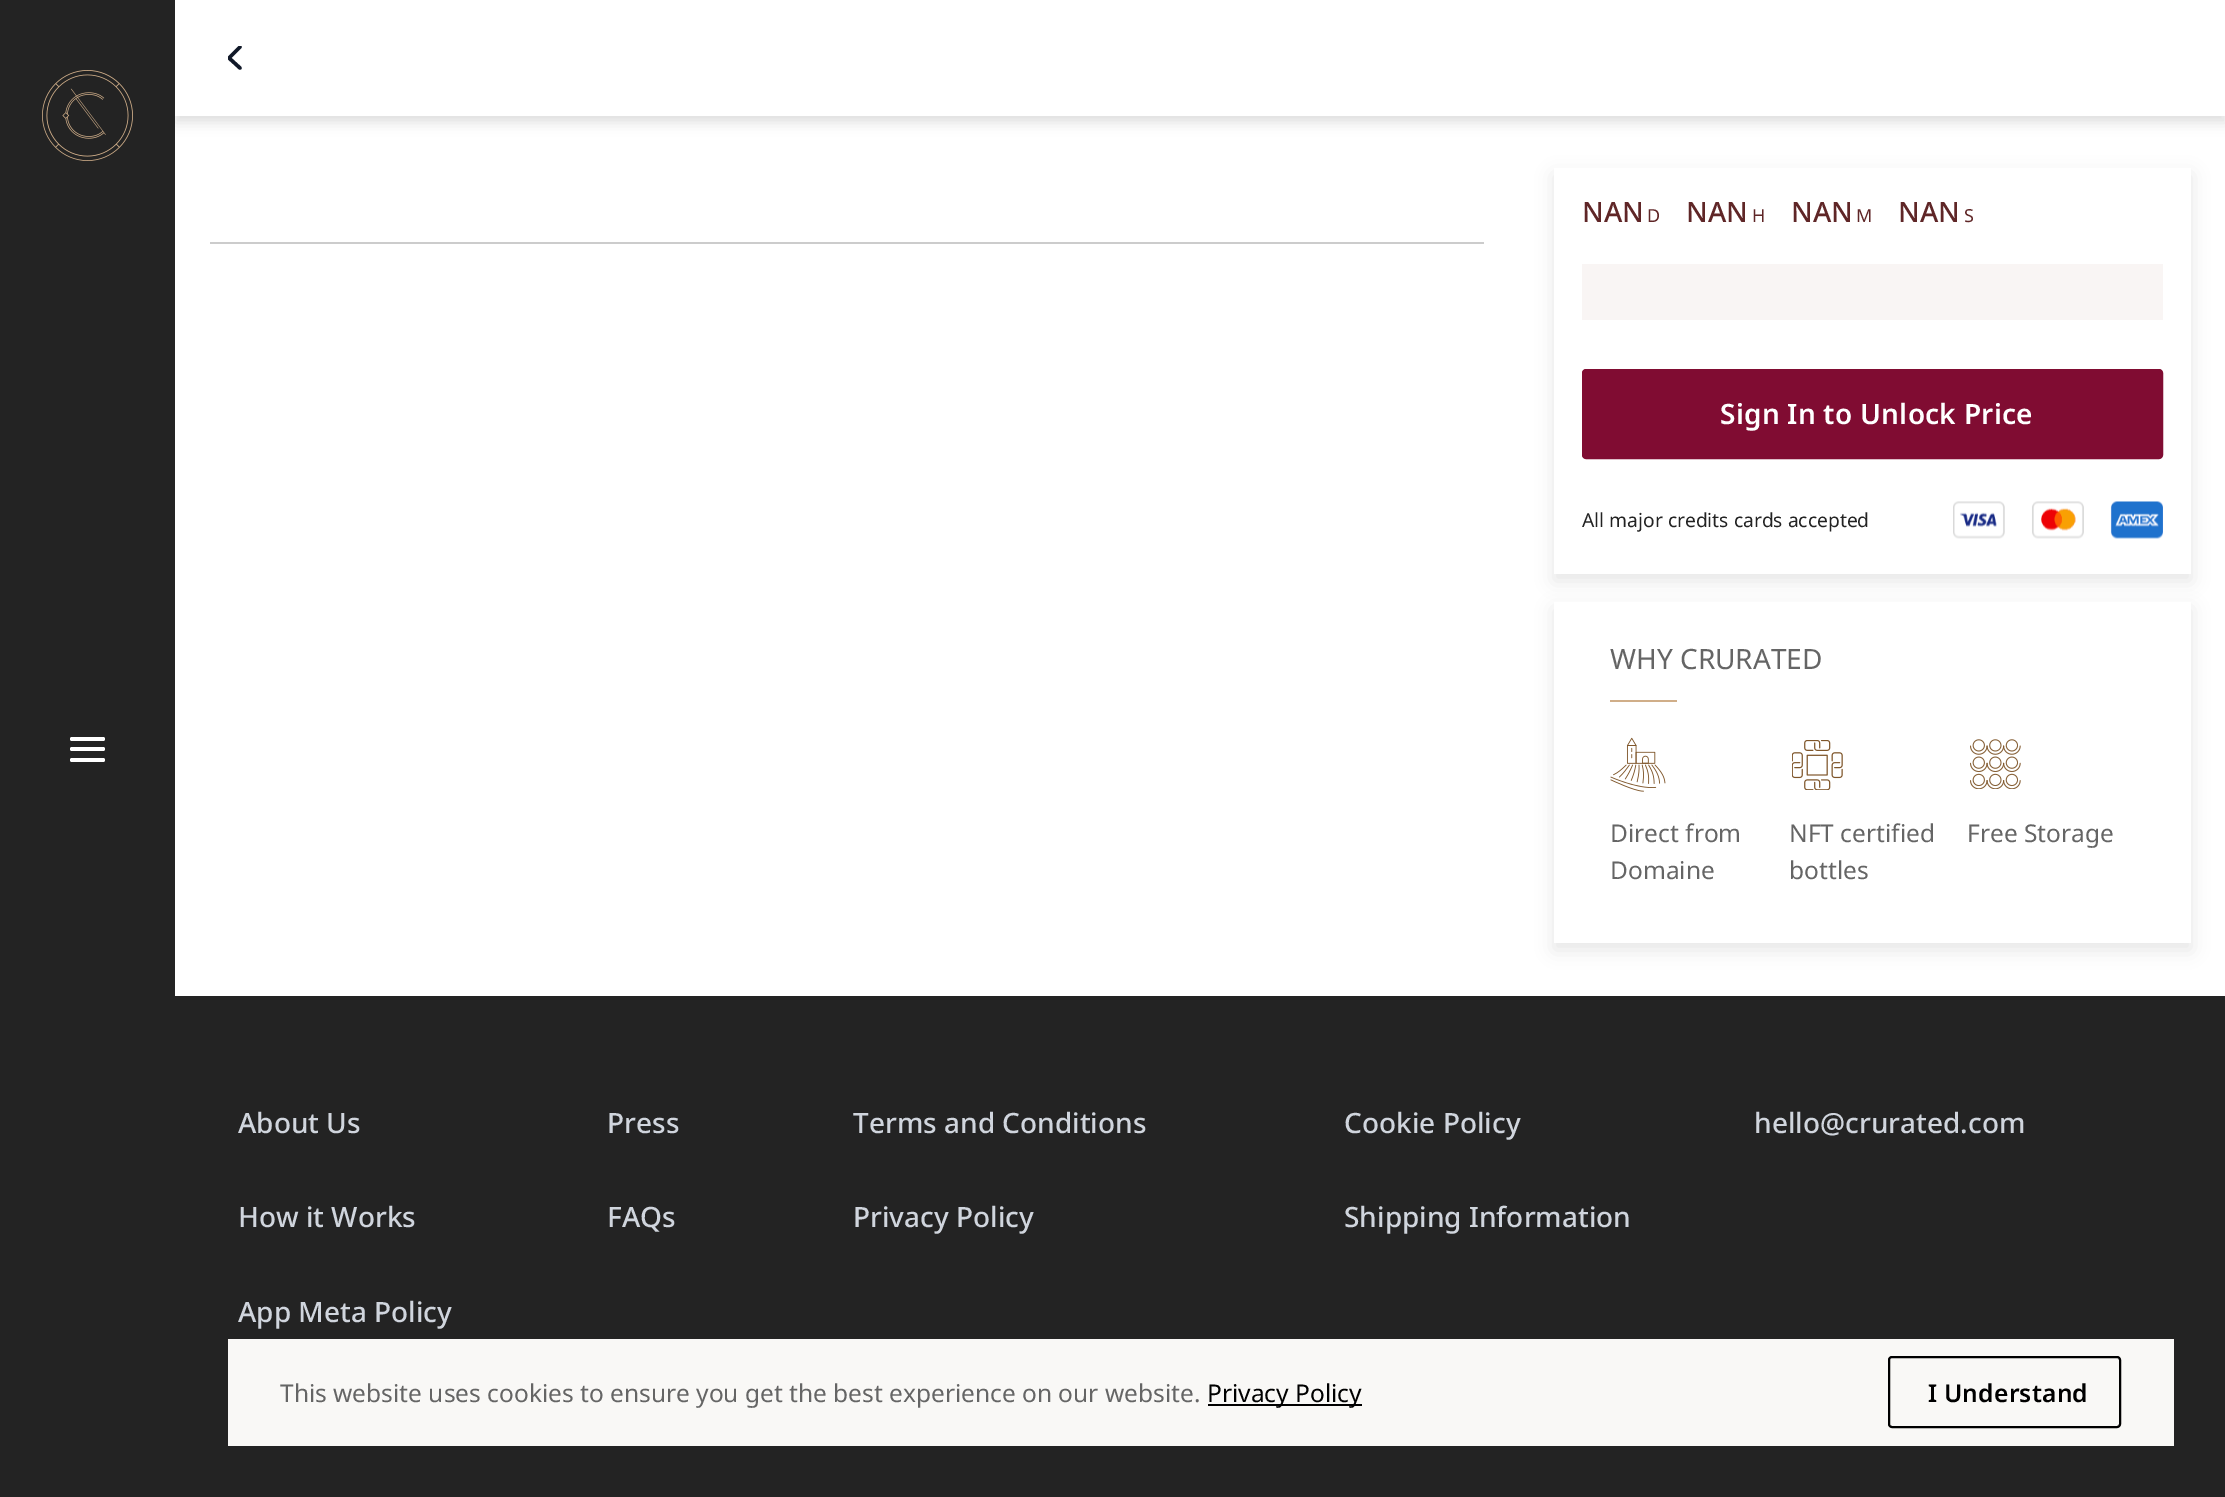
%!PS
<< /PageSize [2225 1497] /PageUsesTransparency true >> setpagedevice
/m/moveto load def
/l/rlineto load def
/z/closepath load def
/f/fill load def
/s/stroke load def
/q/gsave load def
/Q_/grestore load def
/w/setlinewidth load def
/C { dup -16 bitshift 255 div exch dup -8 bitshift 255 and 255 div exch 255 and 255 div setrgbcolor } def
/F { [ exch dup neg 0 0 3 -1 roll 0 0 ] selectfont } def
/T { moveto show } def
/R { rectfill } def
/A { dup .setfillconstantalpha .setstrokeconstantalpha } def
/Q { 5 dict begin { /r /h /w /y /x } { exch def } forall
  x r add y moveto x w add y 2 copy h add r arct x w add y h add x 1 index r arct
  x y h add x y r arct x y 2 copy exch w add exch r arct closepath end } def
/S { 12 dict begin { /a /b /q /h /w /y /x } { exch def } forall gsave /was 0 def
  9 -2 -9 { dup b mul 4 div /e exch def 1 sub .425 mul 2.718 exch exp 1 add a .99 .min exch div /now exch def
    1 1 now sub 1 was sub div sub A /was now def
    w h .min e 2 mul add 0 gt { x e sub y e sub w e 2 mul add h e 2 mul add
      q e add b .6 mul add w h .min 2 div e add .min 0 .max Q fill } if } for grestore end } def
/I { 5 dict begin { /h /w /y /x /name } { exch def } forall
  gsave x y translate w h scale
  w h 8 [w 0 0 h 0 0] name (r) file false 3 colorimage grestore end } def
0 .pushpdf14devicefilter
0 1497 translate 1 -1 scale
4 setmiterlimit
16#FFFFFF C
0 0 2225 1497 R
16#1E1E1E C
175 7 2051 116 0 6 .14 S
16#232323 C
0 0 175 1497 R
(1.rgb) 42 70 91 91 I
16#FFFFFF C
70 737 35 4 2 Q f
70 747 35 4 2 Q f
70 758 35 4 2 Q f
175 0 2050 116 R
q
228 46 14 24 rectclip
16#101828 C
3.5 w
1 setlinecap
1 setlinejoin
240 47 m -11 11 l 11 10 l s
Q_
16#CCCCCC C
210 242 1274 2 R
q
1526 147 m 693 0 l 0 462 l -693 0 l z 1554 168 m 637 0 l 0 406 l -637 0 l z eoclip newpath
16#000000 C
1554 175 637 406 0 9 .1 S
Q_
/NotoSans-Medium 28 F
16#5F2627 C
(NAN) 1582 222 T
/NotoSans-Regular 18 F
(D) 1647 222 T
/NotoSans-Medium 28 F
(NAN) 1686 222 T
/NotoSans-Regular 18 F
(H) 1752 222 T
/NotoSans-Medium 28 F
(NAN) 1791 222 T
/NotoSans-Regular 18 F
(M) 1856 222 T
/NotoSans-Medium 28 F
(NAN) 1898 222 T
/NotoSans-Regular 18 F
(S) 1964 222 T
16#F9F5F4 C
1582 264 581 56 R
16#800C32 C
1583 370 579 88 3 Q q f Q_
2 w
s
/NotoSans-SemiBold 28 F
16#FFFFFF C
1720 424 m .25 0 (Sign In to Unlock Price) ashow
/NotoSans-Regular 19.25 F
16#232323 C
(All major credits cards accepted) 1582 527 T
(2.rgb) 1953 501 210 38 I
q
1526 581 m 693 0 l 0 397 l -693 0 l z 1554 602 m 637 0 l 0 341 l -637 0 l z eoclip newpath
16#000000 C
1554 609 637 341 0 9 .1 S
Q_
/NotoSans-Regular 28 F
16#656565 C
(WHY CRURATED) 1610 669 T
16#D0AE89 C
1610 700 67 2 R
(3.rgb) 1610 737 56 55 I
/NotoSans-Regular 24.5 F
16#656565 C
(Direct from) 1610 842 T
(Domaine) 1610 879 T
(4.rgb) 1792 740 51 50 I
(NFT certified) 1789 842 T
(bottles) 1789 879 T
(5.rgb) 1970 739 51 50 I
(Free Storage) 1967 842 T
16#232323 C
175 996 2050 501 R
/NotoSans-Medium 28 F
16#D0D5DD C
(About Us) 238 1133 T
(How it Works) 238 1227 T
(App Meta Policy) 238 1322 T
(Press) 607 1133 T
(FAQs) 607 1227 T
(Terms and Conditions) 853 1133 T
(Privacy Policy) 853 1227 T
(Cookie Policy) 1344 1133 T
(Shipping Information) 1344 1227 T
(hello@crurated.com) 1754 1133 T
16#F9F8F6 C
228 1339 1946 107 R
/NotoSans-Regular 24.5 F
16#656565 C
(This website uses cookies to ensure you get the best experience on our website.) 280 1402 T
16#000000 C
1208 1404 154 2 R
(Privacy Policy) 1207 1402 T
1889 1357 231 70 3 Q s
/NotoSans-SemiBold 24.5 F
1928 1402 m .25 0 (I Understand) ashow
.poppdf14devicefilter showpage
